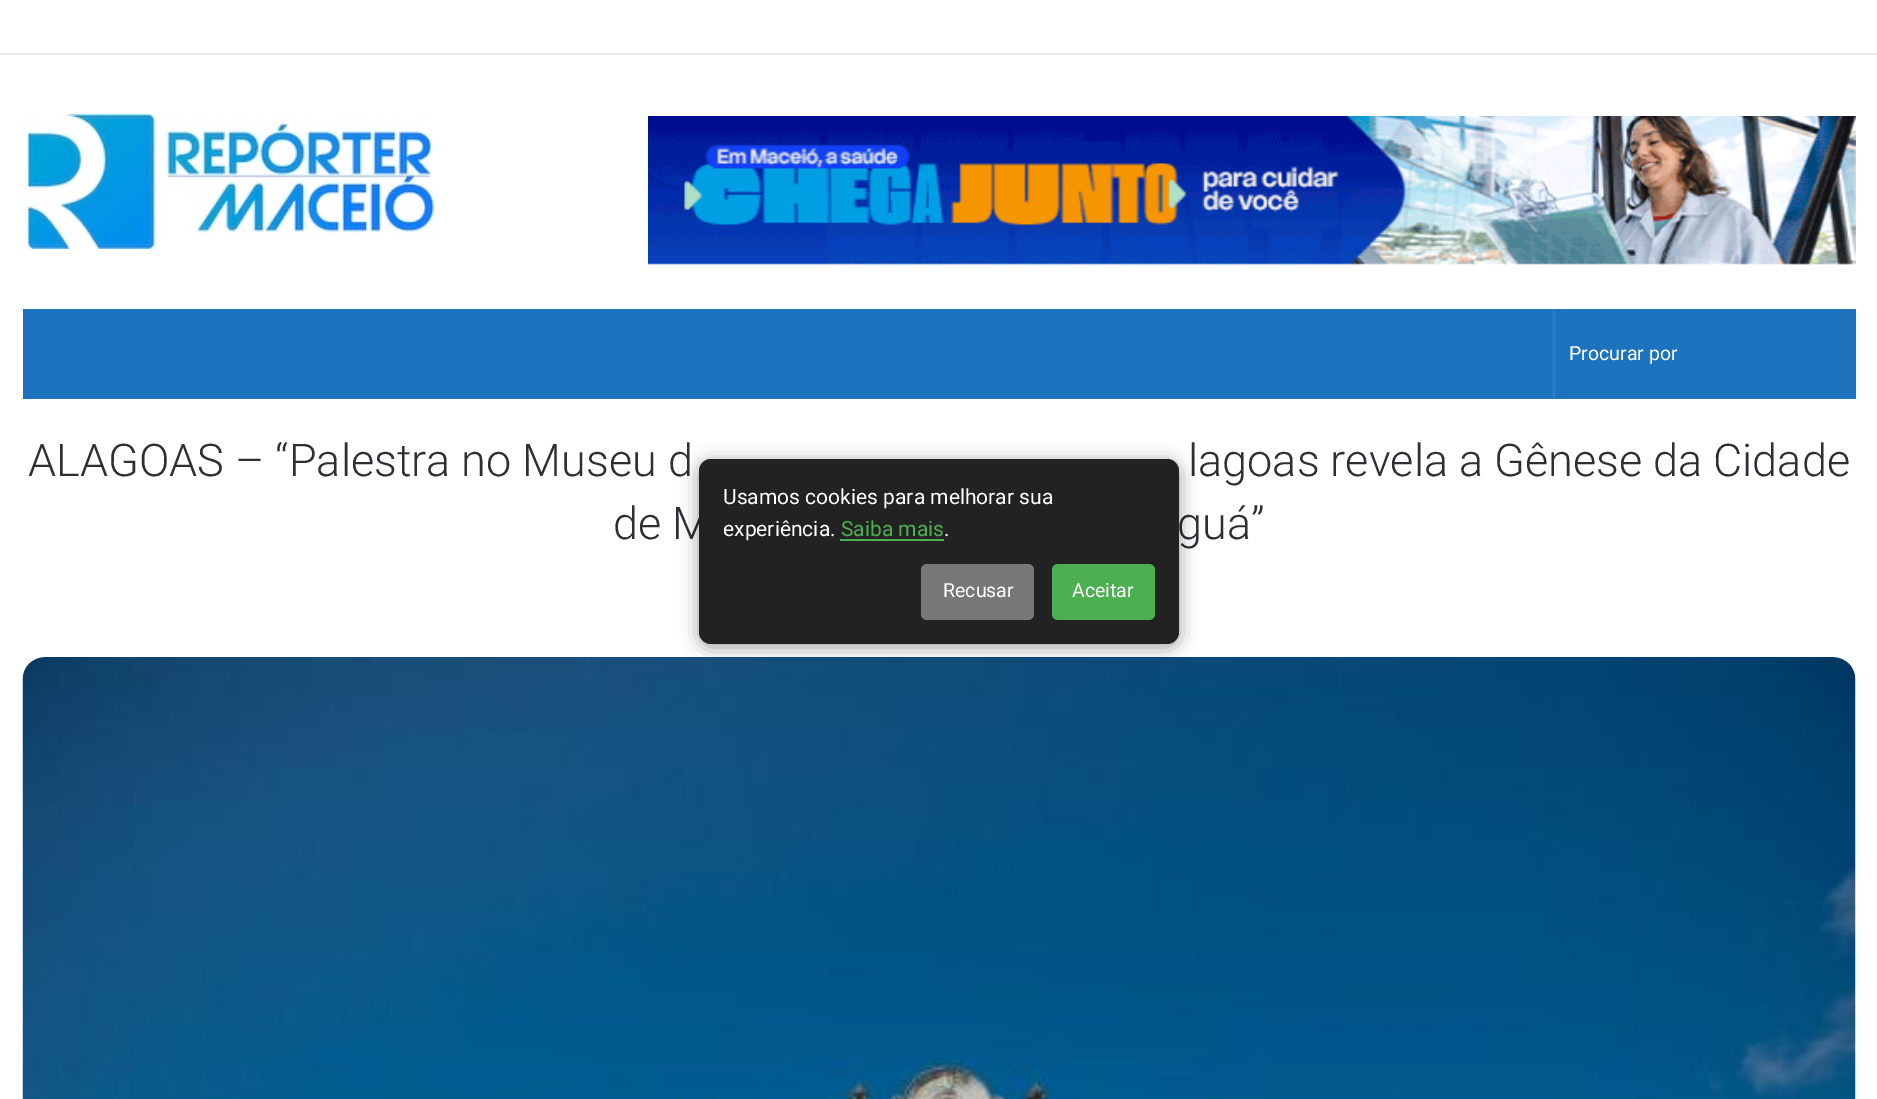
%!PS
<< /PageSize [1877 1099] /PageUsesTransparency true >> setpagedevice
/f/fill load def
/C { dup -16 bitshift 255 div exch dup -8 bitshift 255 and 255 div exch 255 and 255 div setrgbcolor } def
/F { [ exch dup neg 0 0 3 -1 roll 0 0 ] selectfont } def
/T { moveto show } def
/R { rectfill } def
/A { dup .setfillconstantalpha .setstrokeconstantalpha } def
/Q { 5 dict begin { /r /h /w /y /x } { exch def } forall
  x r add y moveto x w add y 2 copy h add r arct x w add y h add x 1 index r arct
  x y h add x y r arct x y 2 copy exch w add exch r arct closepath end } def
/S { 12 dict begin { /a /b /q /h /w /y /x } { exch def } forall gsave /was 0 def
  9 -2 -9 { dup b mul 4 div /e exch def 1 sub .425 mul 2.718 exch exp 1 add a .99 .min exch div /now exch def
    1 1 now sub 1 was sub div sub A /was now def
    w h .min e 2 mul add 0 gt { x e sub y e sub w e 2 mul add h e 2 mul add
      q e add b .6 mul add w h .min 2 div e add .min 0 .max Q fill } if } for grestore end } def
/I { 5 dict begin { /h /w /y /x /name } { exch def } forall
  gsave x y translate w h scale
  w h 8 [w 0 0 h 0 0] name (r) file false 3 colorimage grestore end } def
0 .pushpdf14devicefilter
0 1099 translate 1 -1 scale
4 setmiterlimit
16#FFFFFF C
0 0 1877 1099 R
16#E6E6E6 C
0 53 1877 2 R
(1.rgb) 22 114 419 135 I
(2.rgb) 648 116 1208 149 I
16#1E73BE C
23 309 1833 90 R
16#2E7DC3 C
1553 309 2 90 R
/Roboto-Regular 19.5 F
16#FFFFFF C
(Procurar por) 1569 360 T
/Roboto-Light 45 F
16#2C2F34 C
(ALAGOAS – “Palestra no Museu d) 28 476 T
(lagoas revela a Gênese da Cidade) 1188 476 T
(de M) 613 539 T
(guá”) 1177 539 T
(3.rgb) 22 657 1834 442 I
16#000000 C
699 462 480 185 12 9 .4 S
16#222222 C
699 459 480 185 12 Q f
/Roboto-Regular 21 F
16#FFFFFF C
(Usamos cookies para melhorar sua) 723 504 T
(experiência.) 723 536 T
16#4CAF50 C
(Saiba mais) 841 536 T
840 539 104 2 R
16#FFFFFF C
(.) 944 536 T
16#777777 C
921 564 113 56 6 Q f
/Roboto-Regular 19.5 F
16#FFFFFF C
(Recusar) 943 597 T
16#4CAF50 C
1052 564 103 56 6 Q f
16#FFFFFF C
(Aceitar) 1072 597 T
.poppdf14devicefilter showpage
